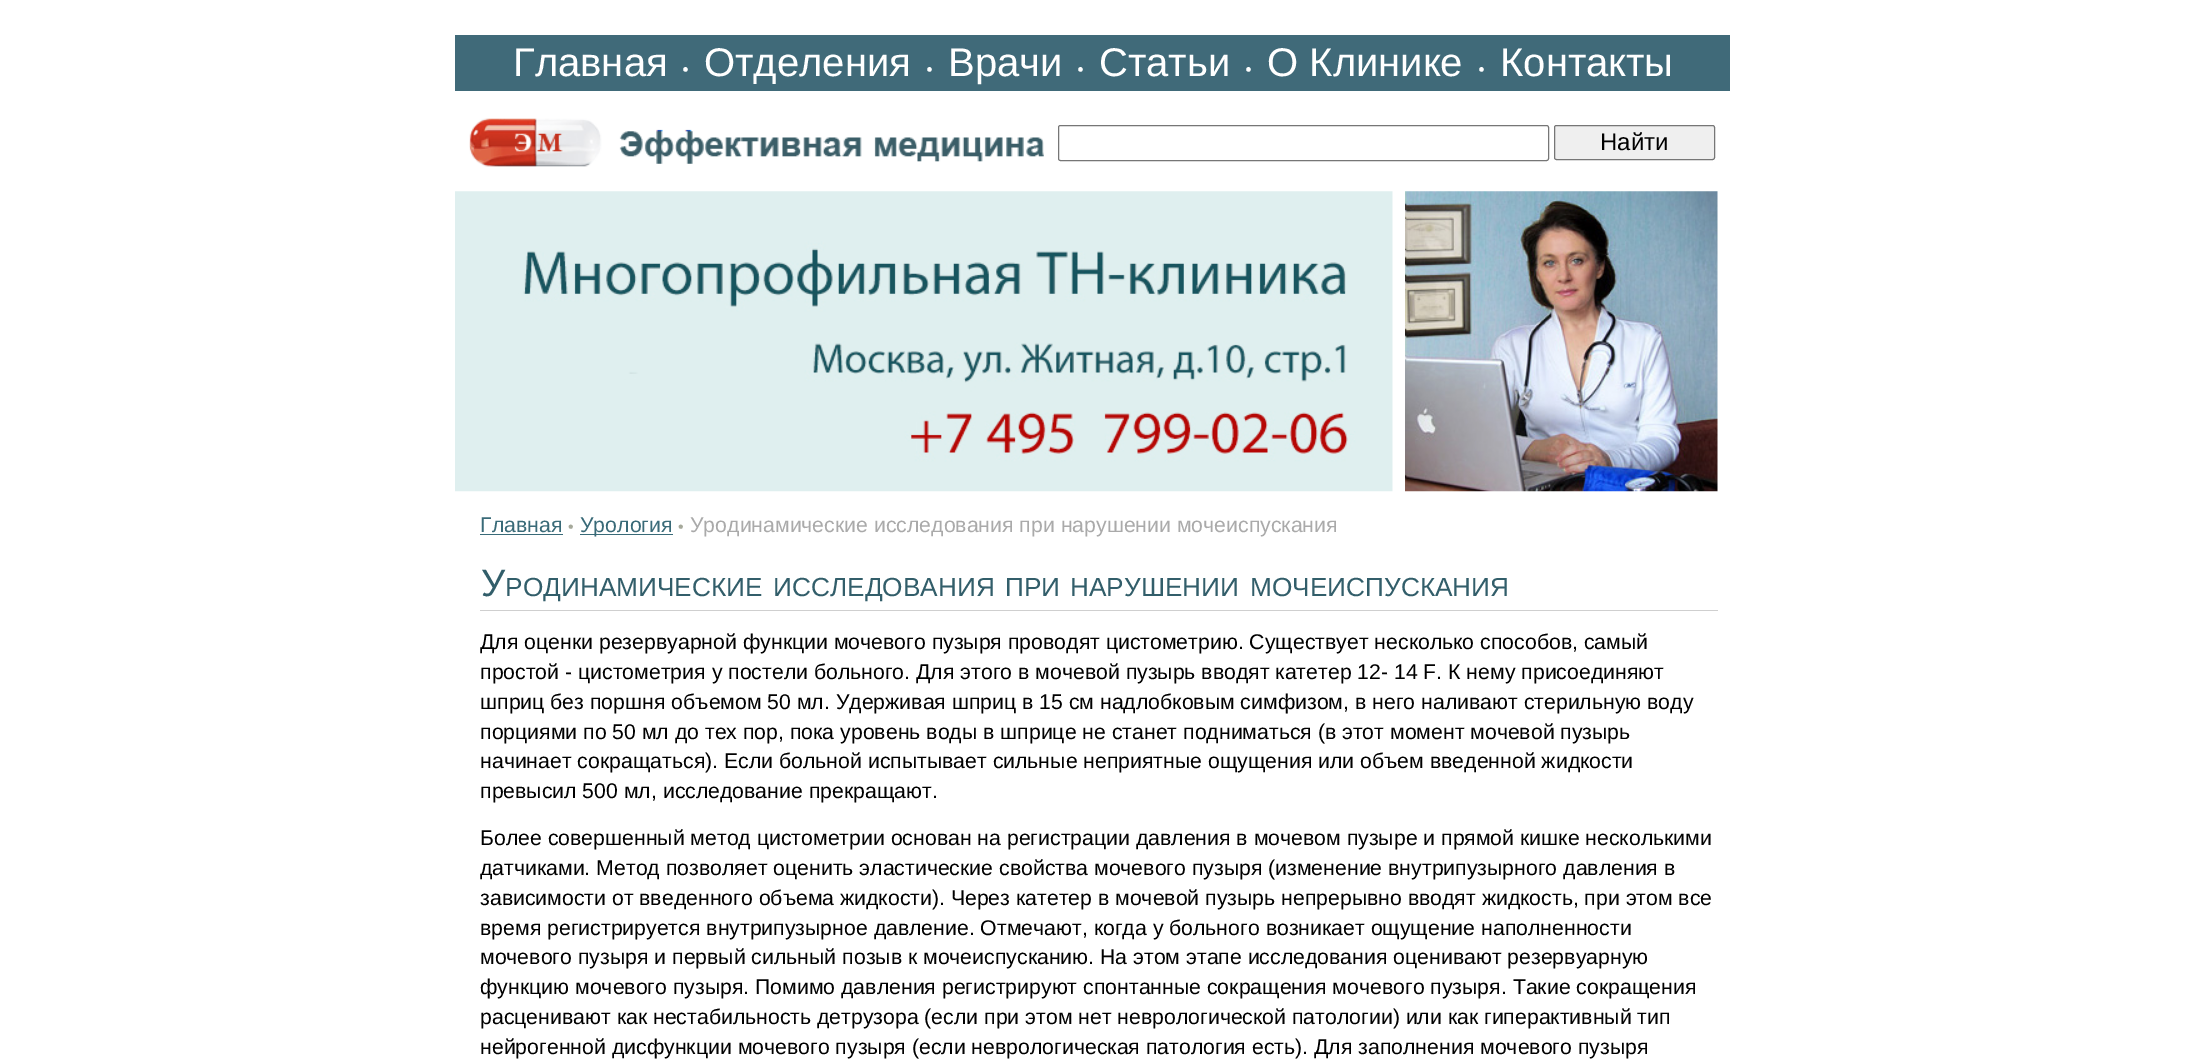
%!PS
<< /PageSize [2185 1064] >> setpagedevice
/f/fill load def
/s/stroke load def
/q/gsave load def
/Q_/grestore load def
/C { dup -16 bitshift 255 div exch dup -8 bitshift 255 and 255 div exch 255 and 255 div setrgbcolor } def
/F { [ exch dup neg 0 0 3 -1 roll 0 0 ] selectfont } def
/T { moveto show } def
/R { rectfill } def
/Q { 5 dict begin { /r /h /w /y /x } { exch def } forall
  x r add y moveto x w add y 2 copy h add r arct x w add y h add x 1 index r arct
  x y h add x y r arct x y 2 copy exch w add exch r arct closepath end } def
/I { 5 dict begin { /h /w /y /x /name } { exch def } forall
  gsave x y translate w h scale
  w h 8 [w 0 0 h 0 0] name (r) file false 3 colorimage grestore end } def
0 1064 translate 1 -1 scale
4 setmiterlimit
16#FFFFFF C
0 0 2185 1064 R
16#406A79 C
455 35 1275 56 R
/LiberationSans-Regular 40 F
16#FFFFFF C
(Главная) 513 76 T
/LiberationSerif-Regular 20 F
(•) 682 76 T
/LiberationSans-Regular 40 F
(Отделения) 704 76 T
/LiberationSerif-Regular 20 F
(•) 926 76 T
/LiberationSans-Regular 40 F
(Врачи) 948 76 T
/LiberationSerif-Regular 20 F
(•) 1077 76 T
/LiberationSans-Regular 40 F
(Статьи) 1099 76 T
/LiberationSerif-Regular 20 F
(•) 1245 76 T
/LiberationSans-Regular 40 F
(О Клинике) 1267 76 T
/LiberationSerif-Regular 20 F
(•) 1478 76 T
/LiberationSans-Regular 40 F
(Контакты) 1500 76 T
(1.rgb) 469 118 575 49 I
16#767676 C
1058.5 125.5 490 35 2 Q s
16#EFEFEF C
1554.5 125.5 160 34 2 Q q f Q_
16#767676 C
s
/LiberationSans-Regular 24 F
16#000000 C
(Найти) 1600 150 T
(2.rgb) 455 191 938 301 I
(3.rgb) 1405 191 313 301 I
/LiberationSans-Regular 21.25 F
16#396A78 C
(Главная) 480 532 T
480 534 83 1 R
/LiberationSans-Regular 16 F
16#A6A99B C
(•) 568 532 T
16#396A78 C
580 534 93 1 R
/LiberationSans-Regular 21.25 F
(Урология) 580 532 T
/LiberationSans-Regular 16 F
16#A6A99B C
(•) 678 532 T
/LiberationSans-Regular 21.25 F
16#AAAAAA C
(Уродинамические исследования при нарушении мочеиспускания) 690 532 T
16#CFCFCF C
480 610 1238 1 R
/LiberationSans-Regular 38 F
16#325E6A C
(У) 481 596 T
/LiberationSans-Regular 26.25 F
(РОДИНАМИЧЕСКИЕ) 505 596 T
(ИССЛЕДОВАНИЯ) 773 596 T
(ПРИ) 1005 596 T
(НАРУШЕНИИ) 1070 596 T
(МОЧЕИСПУСКАНИЯ) 1250 596 T
/LiberationSans-Regular 21.25 F
16#000000 C
(Для оценки резервуарной функции мочевого пузыря проводят цистометрию. Существует несколько способов, самый) 480 649 T
(простой - цистометрия у постели больного. Для этого в мочевой пузырь вводят катетер 12- 14 F. К нему присоединяют) 480 679 T
(шприц без поршня объемом 50 мл. Удерживая шприц в 15 см надлобковым симфизом, в него наливают стерильную воду) 480 709 T
(порциями по 50 мл до тех пор, пока уровень воды в шприце не станет подниматься \(в этот момент мочевой пузырь) 480 739 T
(начинает сокращаться\). Если больной испытывает сильные неприятные ощущения или объем введенной жидкости) 480 768 T
(превысил 500 мл, исследование прекращают.) 480 798 T
(Более совершенный метод цистометрии основан на регистрации давления в мочевом пузыре и прямой кишке несколькими) 480 845 T
(датчиками. Метод позволяет оценить эластические свойства мочевого пузыря \(изменение внутрипузырного давления в) 480 875 T
(зависимости от введенного объема жидкости\). Через катетер в мочевой пузырь непрерывно вводят жидкость, при этом все) 480 905 T
(время регистрируется внутрипузырное давление. Отмечают, когда у больного возникает ощущение наполненности) 480 935 T
(мочевого пузыря и первый сильный позыв к мочеиспусканию. На этом этапе исследования оценивают резервуарную) 480 964 T
(функцию мочевого пузыря. Помимо давления регистрируют спонтанные сокращения мочевого пузыря. Такие сокращения) 480 994 T
(расценивают как нестабильность детрузора \(если при этом нет неврологической патологии\) или как гиперактивный тип) 480 1024 T
(нейрогенной дисфункции мочевого пузыря \(если неврологическая патология есть\). Для заполнения мочевого пузыря) 480 1054 T
showpage
